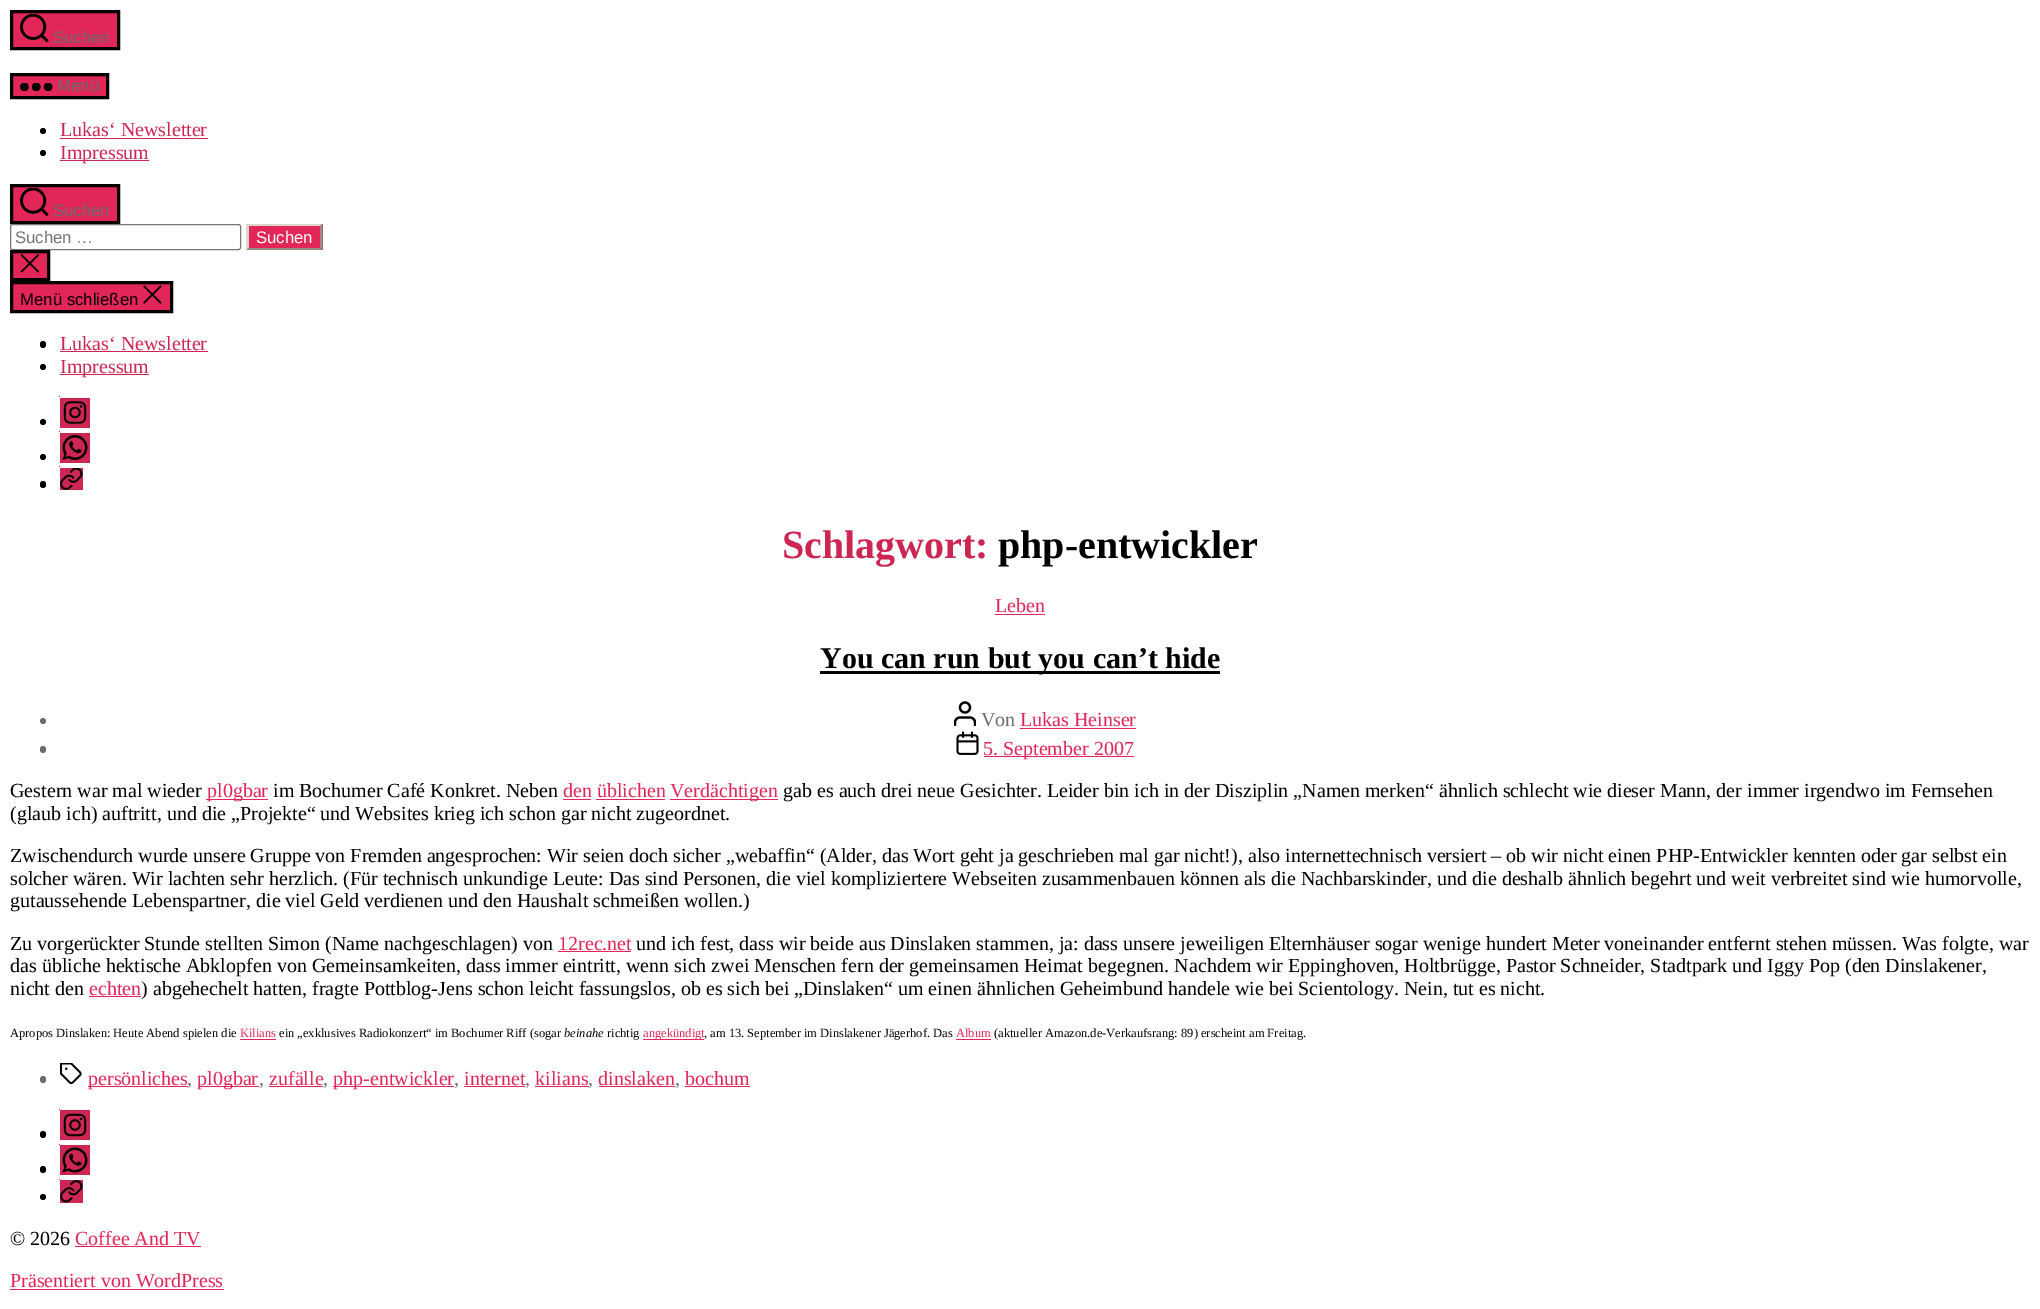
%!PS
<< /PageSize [2040 1309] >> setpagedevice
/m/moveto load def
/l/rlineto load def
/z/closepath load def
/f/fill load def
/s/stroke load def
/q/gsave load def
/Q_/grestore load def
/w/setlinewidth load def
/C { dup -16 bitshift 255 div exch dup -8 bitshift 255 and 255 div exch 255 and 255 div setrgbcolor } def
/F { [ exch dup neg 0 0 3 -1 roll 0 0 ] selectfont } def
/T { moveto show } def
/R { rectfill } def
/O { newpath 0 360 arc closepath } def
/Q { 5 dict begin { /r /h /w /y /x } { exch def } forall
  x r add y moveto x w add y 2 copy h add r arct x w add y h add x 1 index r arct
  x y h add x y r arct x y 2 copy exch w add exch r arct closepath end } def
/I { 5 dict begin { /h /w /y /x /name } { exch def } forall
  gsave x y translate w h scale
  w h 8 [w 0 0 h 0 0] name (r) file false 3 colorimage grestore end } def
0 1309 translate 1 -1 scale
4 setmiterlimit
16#FFFFFF C
0 0 2040 1309 R
16#E22658 C
11.5 11.5 m 107 0 l 0 37 l -107 0 l z q f Q_
16#000000 C
3 w
s
(1.rgb) 20 14 29 29 I
/LiberationSans-Regular 16.75 F
16#6D6D6D C
(Suchen) 53 43 T
16#E22658 C
11.5 74.5 m 96 0 l 0 23 l -96 0 l z q f Q_
16#000000 C
s
(2.rgb) 20 83 33 8 I
16#6D6D6D C
(Menü) 57 91 T
16#000000 C
43 131 3 O f
/LiberationSerif-Regular 20 F
16#CD2653 C
(Lukas‘ Newsletter) 60 136 T
60 138 148 1 R
16#000000 C
43 153 3 O f
16#CD2653 C
60 160 89 1 R
(Impressum) 60 159 T
16#E22658 C
11.5 185.5 m 107 0 l 0 37 l -107 0 l z q f Q_
16#000000 C
s
(3.rgb) 20 188 29 28 I
/LiberationSans-Regular 16.75 F
16#6D6D6D C
(Suchen) 53 216 T
16#767676 C
1 w
10.5 224.5 230 25 2 Q s
16#757575 C
(Suchen …) 15 243 T
16#E22658 C
246 224 77 26 R
16#DCD7CA C
246 224 m 76 0 l -2 2 l -71 0 l z f
16#938F87 C
322.5 224 m 0 26 l -2.5 -2.5 l 0 -21.5 l z f
322 250 m -76 0 l 3 -2 l 71 0 l z f
16#DCD7CA C
246 250 m 0 -26 l 3 2 l 0 21.5 l z f
16#FFFFFF C
(Suchen) 256 243 T
16#E22658 C
11.5 251.5 m 37 0 l 0 28 l -37 0 l z q f Q_
16#000000 C
3 w
s
(4.rgb) 20 254 20 19 I
16#E22658 C
11.5 282.5 m 160 0 l 0 29 l -160 0 l z q f Q_
16#000000 C
s
(Menü schließen) 20 305 T
(5.rgb) 143 285 19 19 I
40 341 6 7 3 Q f
/LiberationSerif-Regular 20 F
16#CD2653 C
(Lukas‘ Newsletter) 60 350 T
60 351 148 1 R
16#000000 C
43 367 3 O f
16#CD2653 C
60 374 89 1 R
(Impressum) 60 373 T
59 396 1 1 R
60 398 30 30 R
16#000000 C
43 422 3 O f
(6.rgb) 63 401 24 23 I
16#CD2653 C
59 431 1 1 R
60 433 30 30 R
16#000000 C
43 457 3 O f
(7.rgb) 62 435 26 25 I
16#CD2653 C
59 466 1 1 R
60 468 23 22 R
16#000000 C
40 481 6 7 3 Q f
(8.rgb) 60 468 23 22 I
/LiberationSerif-Bold 40 F
16#CD2653 C
(Schlagwort:) 782 558 T
16#000000 C
(php-entwickler) 998 558 T
/LiberationSerif-Regular 20 F
16#E22658 C
(Leben) 995 612 T
995 614 50 1 R
16#000000 C
820 671 400 3 R
/LiberationSerif-Bold 30 F
(You can run but you can’t hide) 820 668 T
16#6D6D6D C
43 721 3 O f
(9.rgb) 954 701 22 25 I
/LiberationSerif-Regular 20 F
(Von) 981 726 T
16#E22658 C
(Lukas Heinser) 1020 726 T
1020 728 116 1 R
16#6D6D6D C
40 746 6 7 3 Q f
(10.rgb) 956 731 23 24 I
16#E22658 C
984 756 150 1 R
(5. September 2007) 983 755 T
16#000000 C
(Gestern war mal wieder) 10 797 T
16#E22658 C
206 799 62 1 R
(pl0gbar) 207 797 T
16#000000 C
(im Bochumer Café Konkret. Neben) 273 797 T
16#E22658 C
(den üblichen) 563 797 T
563 799 28 1 R
670 799 108 1 R
(Verdächtigen) 670 797 T
16#000000 C
(gab es auch drei neue Gesichter. Leider bin ich in der Disziplin „Namen merken“ ähnlich schlecht wie dieser Mann, der immer irgendwo im Fernsehen) 783 797 T
16#E22658 C
596 799 69 1 R
16#000000 C
(\(glaub ich\) auftritt, und die „Projekte“ und Websites krieg ich schon gar nicht zugeordnet.) 10 820 T
(Zwischendurch wurde unsere Gruppe von Fremden angesprochen: Wir seien doch sicher „webaffin“ \(Alder, das Wort geht ja geschrieben mal gar nicht!\), also internettechnisch versiert – ob wir nicht einen PHP-Entwickler kennten oder gar selbst ein) 10 862 T
(solcher wären. Wir lachten sehr herzlich. \(Für technisch unkundige Leute: Das sind Personen, die viel kompliziertere Webseiten zusammenbauen können als die Nachbarskinder, und die deshalb ähnlich begehrt und weit verbreitet sind wie humorvolle,) 10 885 T
(gutaussehende Lebenspartner, die viel Geld verdienen und den Haushalt schmeißen wollen.\)) 10 907 T
(Zu vorgerückter Stunde stellten Simon \(Name nachgeschlagen\) von) 10 950 T
16#E22658 C
(12rec.net) 558 950 T
558 951 73 1 R
16#000000 C
(und ich fest, dass wir beide aus Dinslaken stammen, ja: dass unsere jeweiligen Elternhäuser sogar wenige hundert Meter voneinander entfernt stehen müssen. Was folgte, war) 636 950 T
(das übliche hektische Abklopfen von Gemeinsamkeiten, dass immer eintritt, wenn sich zwei Menschen fern der gemeinsamen Heimat begegnen. Nachdem wir Eppinghoven, Holtbrügge, Pastor Schneider, Stadtpark und Iggy Pop \(den Dinslakener,) 10 972 T
(nicht den) 10 995 T
16#E22658 C
(echten) 89 995 T
89 996 52 1 R
16#000000 C
(\) abgehechelt hatten, fragte Pottblog-Jens schon leicht fassungslos, ob es sich bei „Dinslaken“ um einen ähnlichen Geheimbund handele wie bei Scientology. Nein, tut es nicht.) 141 995 T
/LiberationSerif-Regular 12.5 F
(Apropos Dinslaken: Heute Abend spielen die) 10 1037 T
16#E22658 C
(Kilians) 240 1037 T
240 1039 36 1 R
16#000000 C
(ein „exklusives Radiokonzert“ im Bochumer Riff \(sogar) 279 1037 T
/LiberationSerif-Italic 12.5 F
(beinahe) 564 1037 T
/LiberationSerif-Regular 12.5 F
(richtig) 607 1037 T
16#E22658 C
643 1039 61 1 R
(angekündigt) 643 1037 T
16#000000 C
(, am 13. September im Dinslakener Jägerhof. Das) 704 1037 T
16#E22658 C
(Album) 956 1037 T
956 1039 35 1 R
16#000000 C
(\(aktueller Amazon.de-Verkaufsrang: 89\) erscheint am Freitag.) 994 1037 T
16#6D6D6D C
40 1076 6 7 3 Q f
(11.rgb) 60 1063 22 22 I
16#E22658 C
88 1086 100 1 R
/LiberationSerif-Regular 20 F
(persönliches) 88 1085 T
198 1086 61 1 R
(pl0gbar) 197 1085 T
(zufälle) 269 1085 T
333 1086 121 1 R
(php-entwickler) 333 1085 T
(internet) 464 1085 T
(kilians) 535 1085 T
(dinslaken) 598 1085 T
(bochum) 685 1085 T
16#6D6D6D C
(,) 187 1085 T
(,) 259 1085 T
(,) 323 1085 T
16#E22658 C
269 1086 54 1 R
16#6D6D6D C
(,) 454 1085 T
(,) 525 1085 T
16#E22658 C
464 1086 61 1 R
16#6D6D6D C
(,) 588 1085 T
16#E22658 C
535 1086 54 1 R
16#6D6D6D C
(,) 675 1085 T
16#E22658 C
599 1086 76 1 R
685 1086 65 1 R
16#CD2653 C
59 1109 1 1 R
60 1110 30 30 R
16#000000 C
40 1131 6 7 3 Q f
(12.rgb) 63 1113 24 24 I
16#CD2653 C
59 1144 1 1 R
60 1145 30 30 R
16#000000 C
40 1166 6 7 3 Q f
(13.rgb) 62 1147 26 26 I
16#CD2653 C
59 1179 1 1 R
60 1180 23 23 R
16#000000 C
43 1197 3 O f
(14.rgb) 60 1180 23 23 I
(© 2026) 10 1245 T
16#E22658 C
(Coffee And TV) 75 1245 T
75 1246 126 1 R
(Präsentiert von WordPress) 10 1287 T
10 1289 214 1 R
showpage
